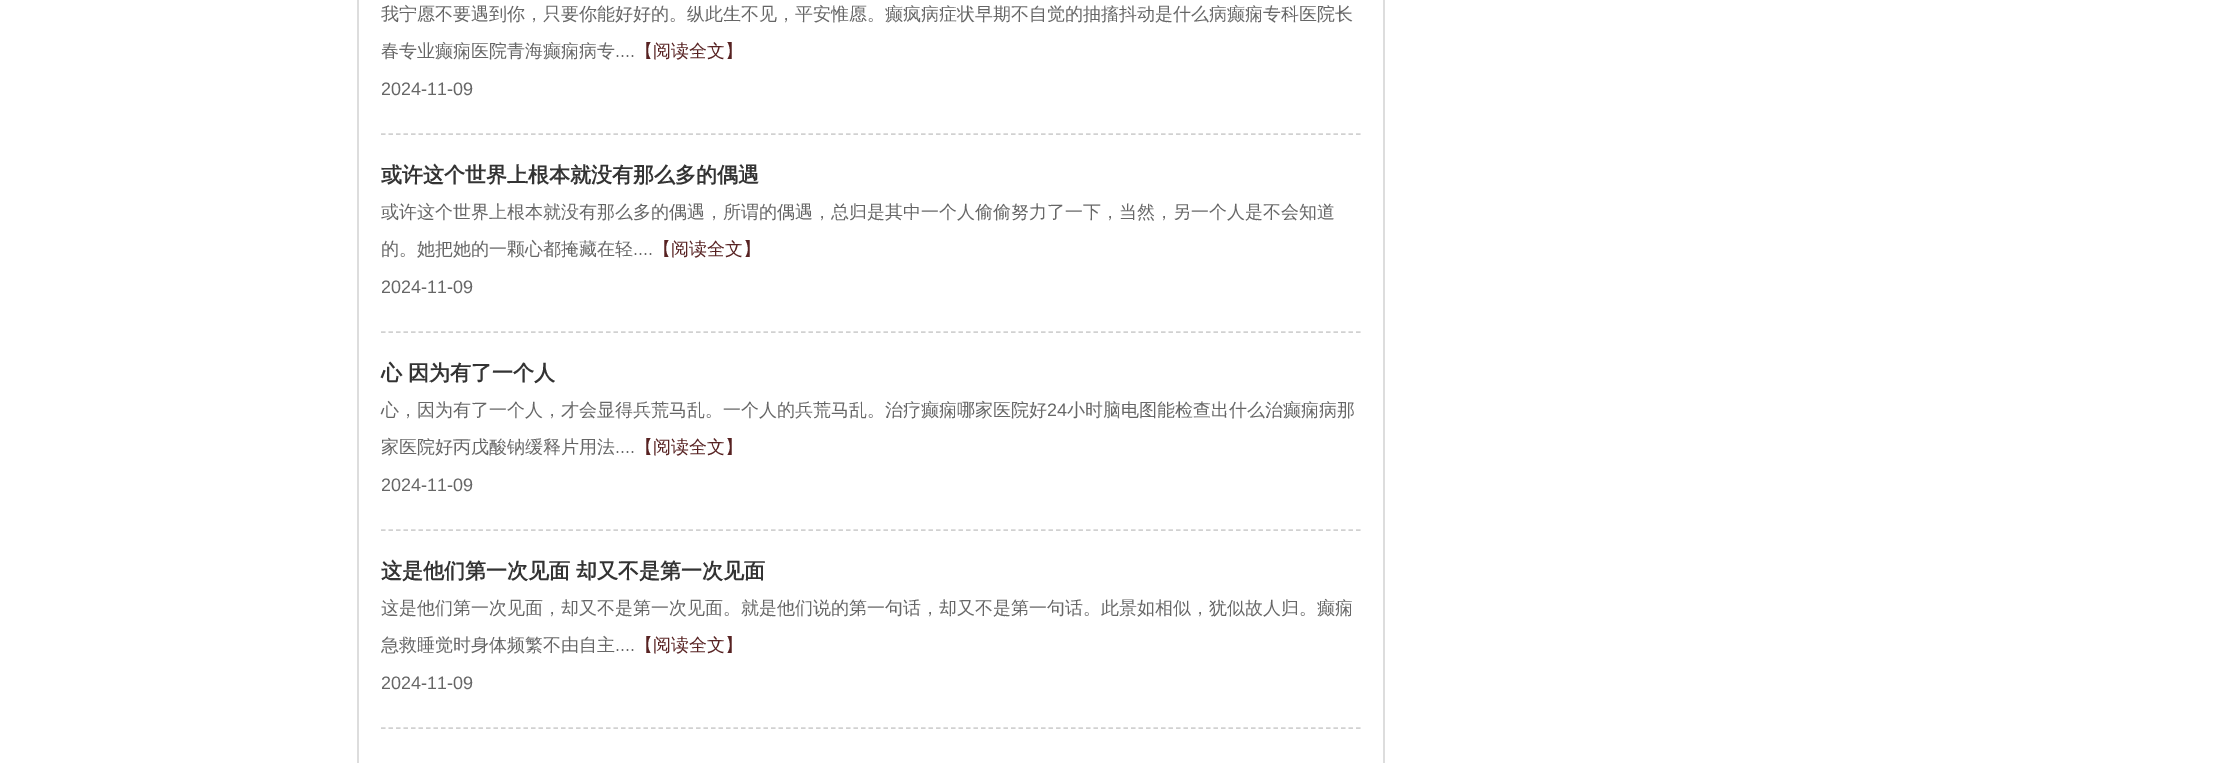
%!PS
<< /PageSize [2213 763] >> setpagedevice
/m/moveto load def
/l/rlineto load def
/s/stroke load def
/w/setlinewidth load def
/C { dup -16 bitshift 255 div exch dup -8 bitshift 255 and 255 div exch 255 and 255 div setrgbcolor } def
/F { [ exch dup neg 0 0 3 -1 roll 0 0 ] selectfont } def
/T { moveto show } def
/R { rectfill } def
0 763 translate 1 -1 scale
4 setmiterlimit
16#FFFFFF C
0 0 2213 763 R
16#DDDDDD C
1383 0 2 763 R
357 0 2 763 R
16#D1D1D1 C
1.5 w
[4.5 3] 0 setdash
381 134 m 979.5 0 l s
/WenQuanYiZenHei-Medium 18 F
16#666666 C
(我宁愿不要遇到你，只要你能好好的。纵此生不见，平安惟愿。癫疯病症状早期不自觉的抽搐抖动是什么病癫痫专科医院长) 381 20 T
(春专业癫痫医院青海癫痫病专) 381 57 T
/LiberationSans-Regular 18 F
(....) 615 57 T
/WenQuanYiZenHei-Medium 18 F
16#572222 C
(【阅读全文】) 635 57 T
/LiberationSans-Regular 18 F
16#666666 C
(2024-11-09) 381 95 T
16#D1D1D1 C
381 332 m 979.5 0 l s
/WenQuanYiZenHei-Bold 21 F
16#333333 C
(或许这个世界上根本就没有那么多的偶遇) 381 182 T
/WenQuanYiZenHei-Medium 18 F
16#666666 C
(或许这个世界上根本就没有那么多的偶遇，所谓的偶遇，总归是其中一个人偷偷努力了一下，当然，另一个人是不会知道) 381 218 T
(的。她把她的一颗心都掩藏在轻) 381 255 T
/LiberationSans-Regular 18 F
(....) 633 255 T
/WenQuanYiZenHei-Medium 18 F
16#572222 C
(【阅读全文】) 653 255 T
/LiberationSans-Regular 18 F
16#666666 C
(2024-11-09) 381 293 T
16#D1D1D1 C
381 530 m 979.5 0 l s
/WenQuanYiZenHei-Bold 21 F
16#333333 C
(心 因为有了一个人) 381 380 T
/WenQuanYiZenHei-Medium 18 F
16#666666 C
(心，因为有了一个人，才会显得兵荒马乱。一个人的兵荒马乱。治疗癫痫哪家医院好) 381 416 T
/LiberationSans-Regular 18 F
(24) 1047 416 T
/WenQuanYiZenHei-Medium 18 F
(小时脑电图能检查出什么治癫痫病那) 1067 416 T
(家医院好丙戊酸钠缓释片用法) 381 453 T
/LiberationSans-Regular 18 F
(....) 615 453 T
/WenQuanYiZenHei-Medium 18 F
16#572222 C
(【阅读全文】) 635 453 T
/LiberationSans-Regular 18 F
16#666666 C
(2024-11-09) 381 491 T
16#D1D1D1 C
381 728 m 979.5 0 l s
/WenQuanYiZenHei-Bold 21 F
16#333333 C
(这是他们第一次见面 却又不是第一次见面) 381 578 T
/WenQuanYiZenHei-Medium 18 F
16#666666 C
(这是他们第一次见面，却又不是第一次见面。就是他们说的第一句话，却又不是第一句话。此景如相似，犹似故人归。癫痫) 381 614 T
(急救睡觉时身体频繁不由自主) 381 651 T
/LiberationSans-Regular 18 F
(....) 615 651 T
/WenQuanYiZenHei-Medium 18 F
16#572222 C
(【阅读全文】) 635 651 T
/LiberationSans-Regular 18 F
16#666666 C
(2024-11-09) 381 689 T
showpage
